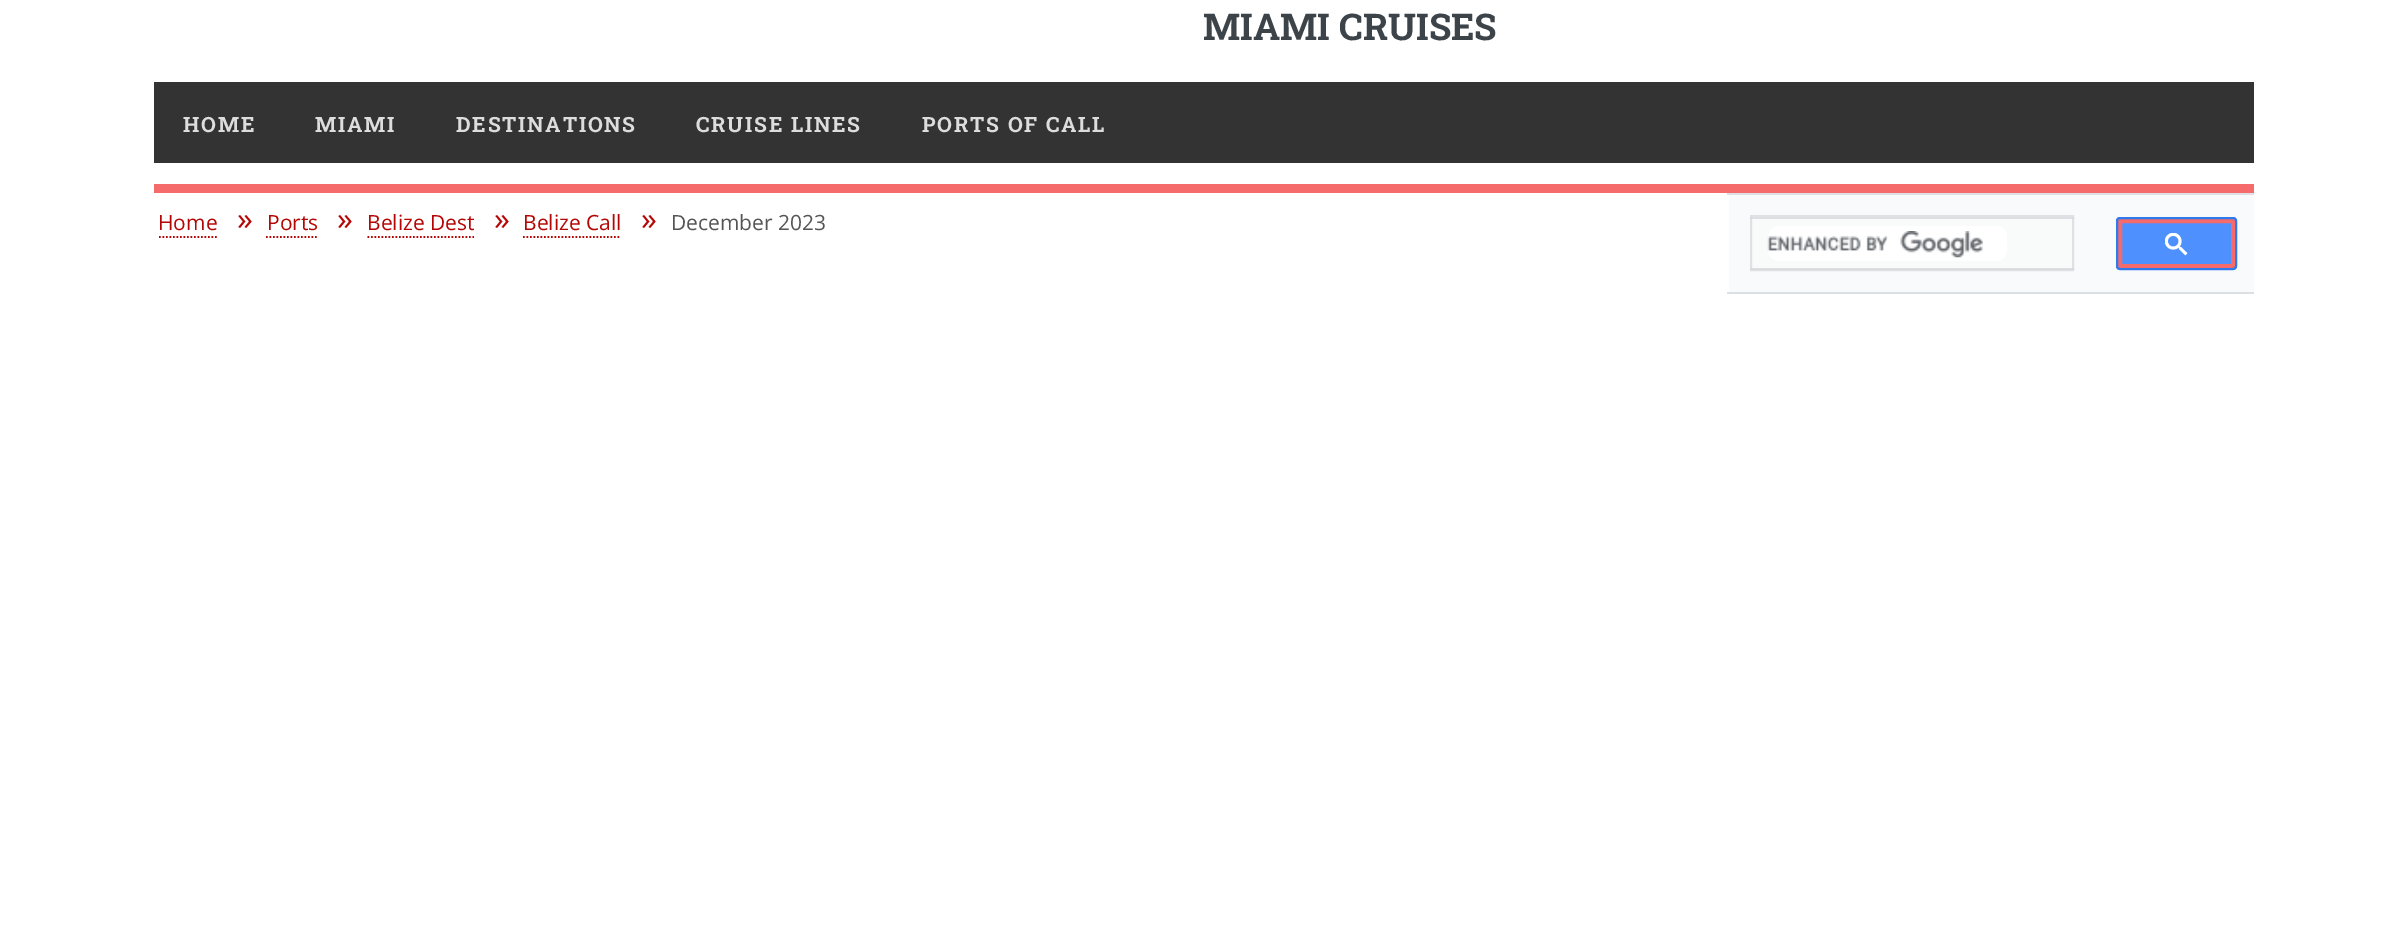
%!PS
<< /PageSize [2406 950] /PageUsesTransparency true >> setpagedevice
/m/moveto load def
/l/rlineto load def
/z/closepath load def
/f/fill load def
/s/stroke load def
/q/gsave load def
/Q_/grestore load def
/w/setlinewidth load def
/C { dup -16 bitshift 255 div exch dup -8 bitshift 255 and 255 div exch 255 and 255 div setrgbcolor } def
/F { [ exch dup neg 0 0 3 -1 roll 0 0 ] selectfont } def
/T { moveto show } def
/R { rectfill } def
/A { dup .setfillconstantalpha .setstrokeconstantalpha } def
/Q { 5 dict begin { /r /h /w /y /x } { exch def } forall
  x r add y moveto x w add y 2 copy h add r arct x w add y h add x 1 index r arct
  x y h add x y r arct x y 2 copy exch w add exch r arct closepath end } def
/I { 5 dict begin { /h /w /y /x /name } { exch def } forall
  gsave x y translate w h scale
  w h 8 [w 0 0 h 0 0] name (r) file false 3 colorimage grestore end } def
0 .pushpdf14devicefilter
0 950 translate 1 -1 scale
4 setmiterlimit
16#FFFFFF C
0 0 2406 950 R
16#DDE1E3 C
1727 292 2 2 R
1727 193 527 2 R
/RobotoSlab-Bold 36.75 F
16#3D4449 C
(MIAMI CRUISES) 1203 40 T
16#F56A6A C
154 184 2100 9 R
16#333333 C
154 82 2100 81 R
/RobotoSlab-Bold 21 F
16#DDDDDD C
183 132 m 1.75 0 (HOME) ashow
315 132 m 1.75 0 (MIAMI) ashow
456 132 m 1.75 0 (DESTINATIONS) ashow
696 132 m 1.75 0 (CRUISE LINES) ashow
922 132 m 1.75 0 (PORTS OF CALL) ashow
/OpenSans-Regular 21 F
16#B50606 C
(Home) 158 230 T
1.8 w
[1.75 1.75] 0 setdash
159 237 m 58 0 l s
/OpenSans-Regular 32 F
(») 237 230 T
/OpenSans-Regular 21 F
(Ports) 267 230 T
266 237 m 52.5 0 l s
/OpenSans-Regular 32 F
(») 337 230 T
/OpenSans-Regular 21 F
(Belize Dest) 367 230 T
367.5 237 m 106.5 0 l s
/OpenSans-Regular 32 F
(») 494 230 T
/OpenSans-Regular 21 F
(Belize Call) 523 230 T
523 237 m 98 0 l s
/OpenSans-Regular 32 F
(») 641 230 T
/OpenSans-Regular 21 F
16#555555 C
(December 2023) 671 230 T
16#F9FAFB C
1729 195 525 97 R
16#DCE0E2 C
1729 292 525 2 R
16#FFFFFF C
1751 216 m 322 0 l 0 54 l -322 0 l z q f Q_
16#DFE1E5 C
2 w
[] 0 setdash
s
0.25 A
16#E6EBED C
1752 219 320 50 R
0.75 A
16#D2D7D9 C
1750 217 324 2 R
1750 268 324 2 R
1 A
16#FFFFFF C
1768 226 239 35 11 Q f
(1.rgb) 1767 231 216 27 I
16#4D90FE C
2116 217 121 53 4 Q f
16#F56A6A C
4 w
2120 221 113 45 rectstroke
16#3079ED C
2 w
2117 218 119 51 3 Q s
(2.rgb) 2165 233 23 23 I
.poppdf14devicefilter showpage
